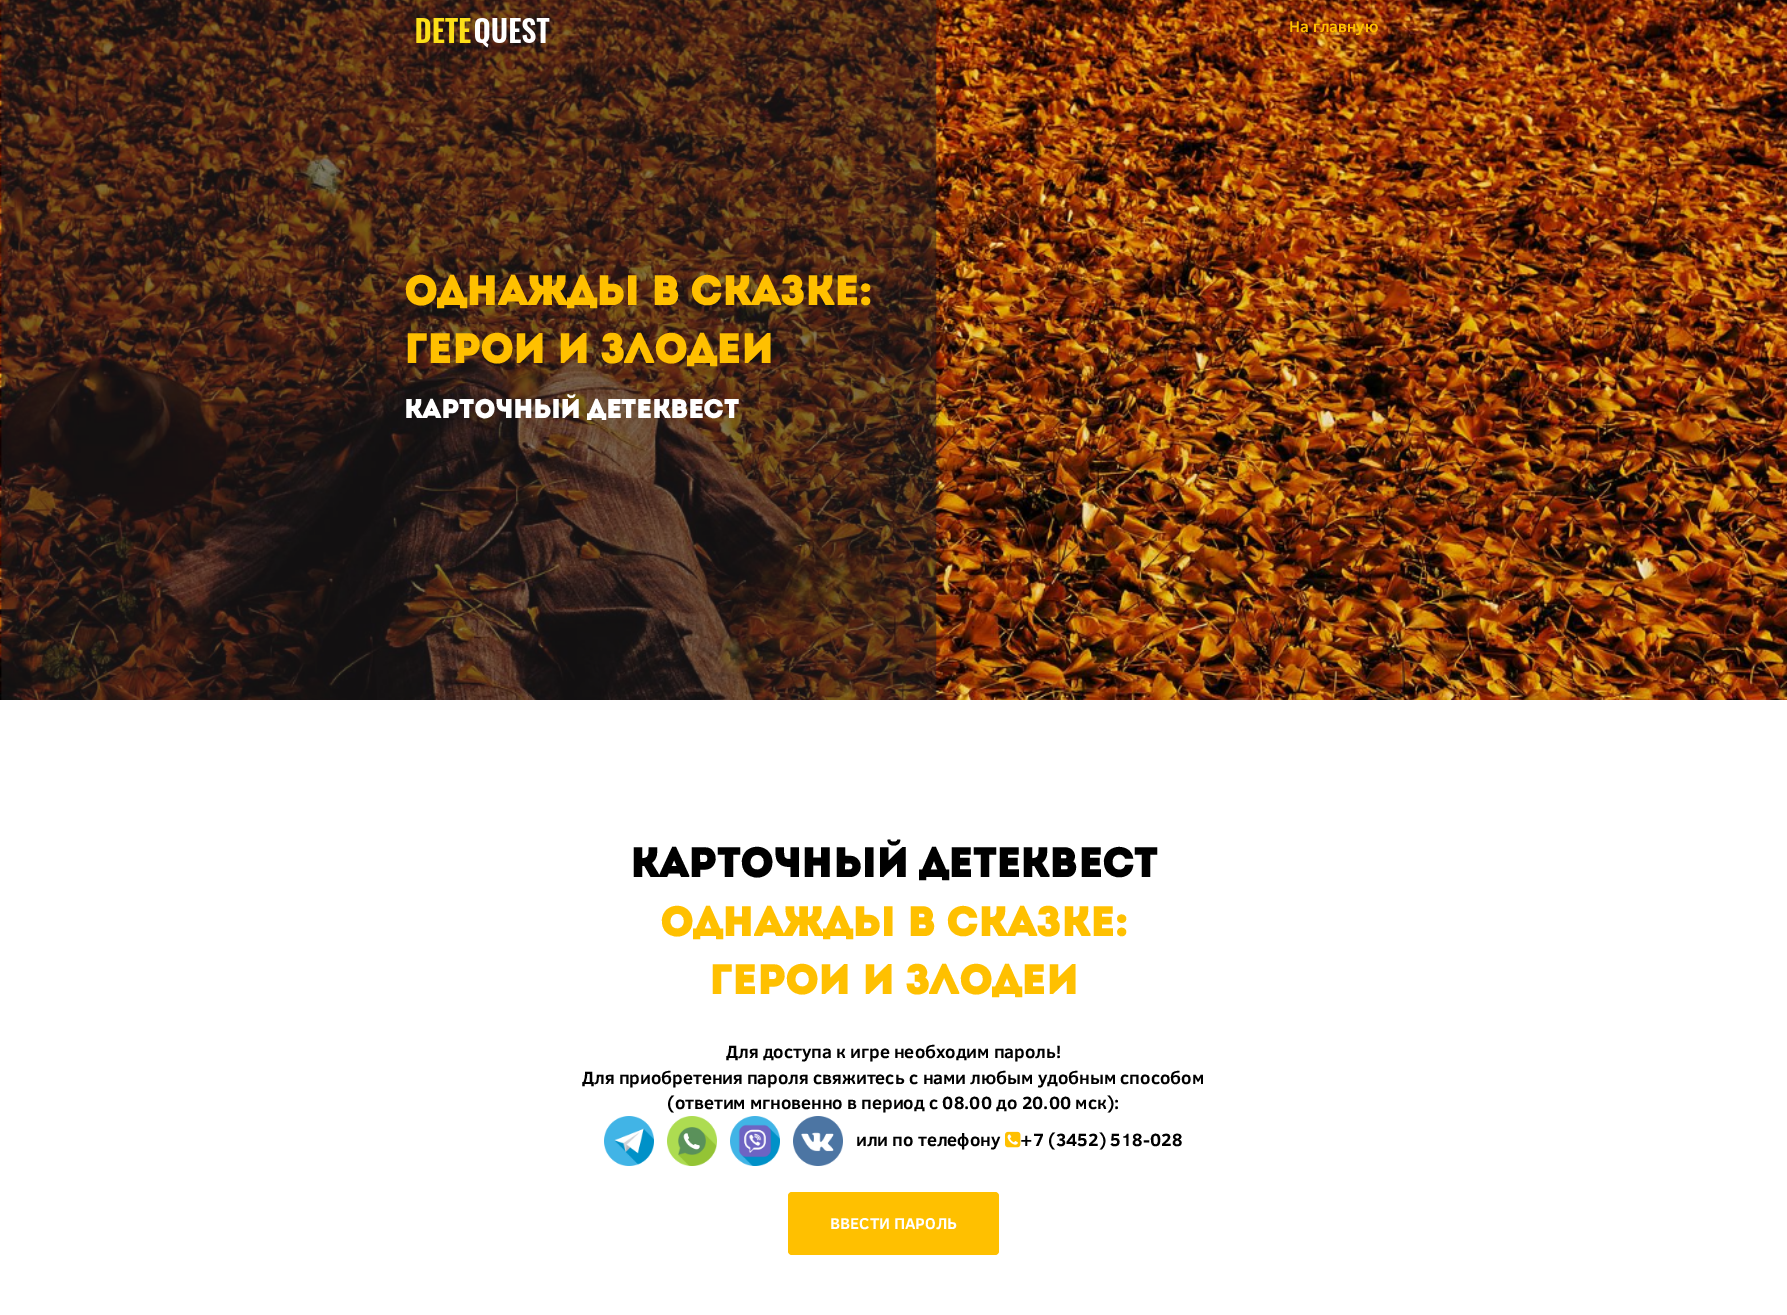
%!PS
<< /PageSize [1787 1315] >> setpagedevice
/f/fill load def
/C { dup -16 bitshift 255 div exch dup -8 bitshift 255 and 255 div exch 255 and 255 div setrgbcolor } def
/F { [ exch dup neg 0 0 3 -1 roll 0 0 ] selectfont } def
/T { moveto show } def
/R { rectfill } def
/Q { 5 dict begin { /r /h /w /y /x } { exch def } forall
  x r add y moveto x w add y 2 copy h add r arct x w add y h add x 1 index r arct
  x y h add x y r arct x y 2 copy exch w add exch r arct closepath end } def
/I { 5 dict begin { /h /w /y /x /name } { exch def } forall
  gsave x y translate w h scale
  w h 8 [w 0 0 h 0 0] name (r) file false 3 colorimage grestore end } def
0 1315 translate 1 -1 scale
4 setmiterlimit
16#FFFFFF C
0 0 1787 1315 R
(2.rgb) 0 0 1787 700 I
(1.rgb) 416 18 134 30 I
/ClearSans-Bold 16 F
16#FFC000 C
(На главную) 1289 32 T
/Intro-Bold 41 F
(ОДНАЖДЫ В СКАЗКЕ:) 404 305 T
(ГЕРОИ И ЗЛОДЕИ) 404 363 T
/Intro-Bold 26 F
16#FFFFFF C
(карточный детеквест) 404 418 T
/Intro-Bold 41 F
16#000000 C
(карточный детеквест) 630 877 T
16#FFC000 C
(ОДНАЖДЫ В СКАЗКЕ:) 660 936 T
(ГЕРОИ И ЗЛОДЕИ) 709 994 T
/ClearSans-Bold 18 F
16#000000 C
(Для доступа к игре необходим пароль!) 726 1058 T
(Для приобретения пароля свяжитесь с нами любым удобным способом) 582 1084 T
(\(ответим мгновенно в период с 08.00 до 20.00 мск\):) 667 1109 T
(3.rgb) 604 1116 50 50 I
(4.rgb) 667 1116 50 50 I
(5.rgb) 730 1116 50 50 I
(6.rgb) 793 1116 50 50 I
(или по телефону) 856 1146 T
(7.rgb) 1005 1131 16 17 I
(+7 \(3452\) 518-028) 1020 1146 T
16#FFC000 C
788 1192 211 63 4 Q f
/ClearSans-Bold 16 F
16#FFFFFF C
(ВВЕСТИ ПАРОЛЬ) 830 1229 T
showpage
